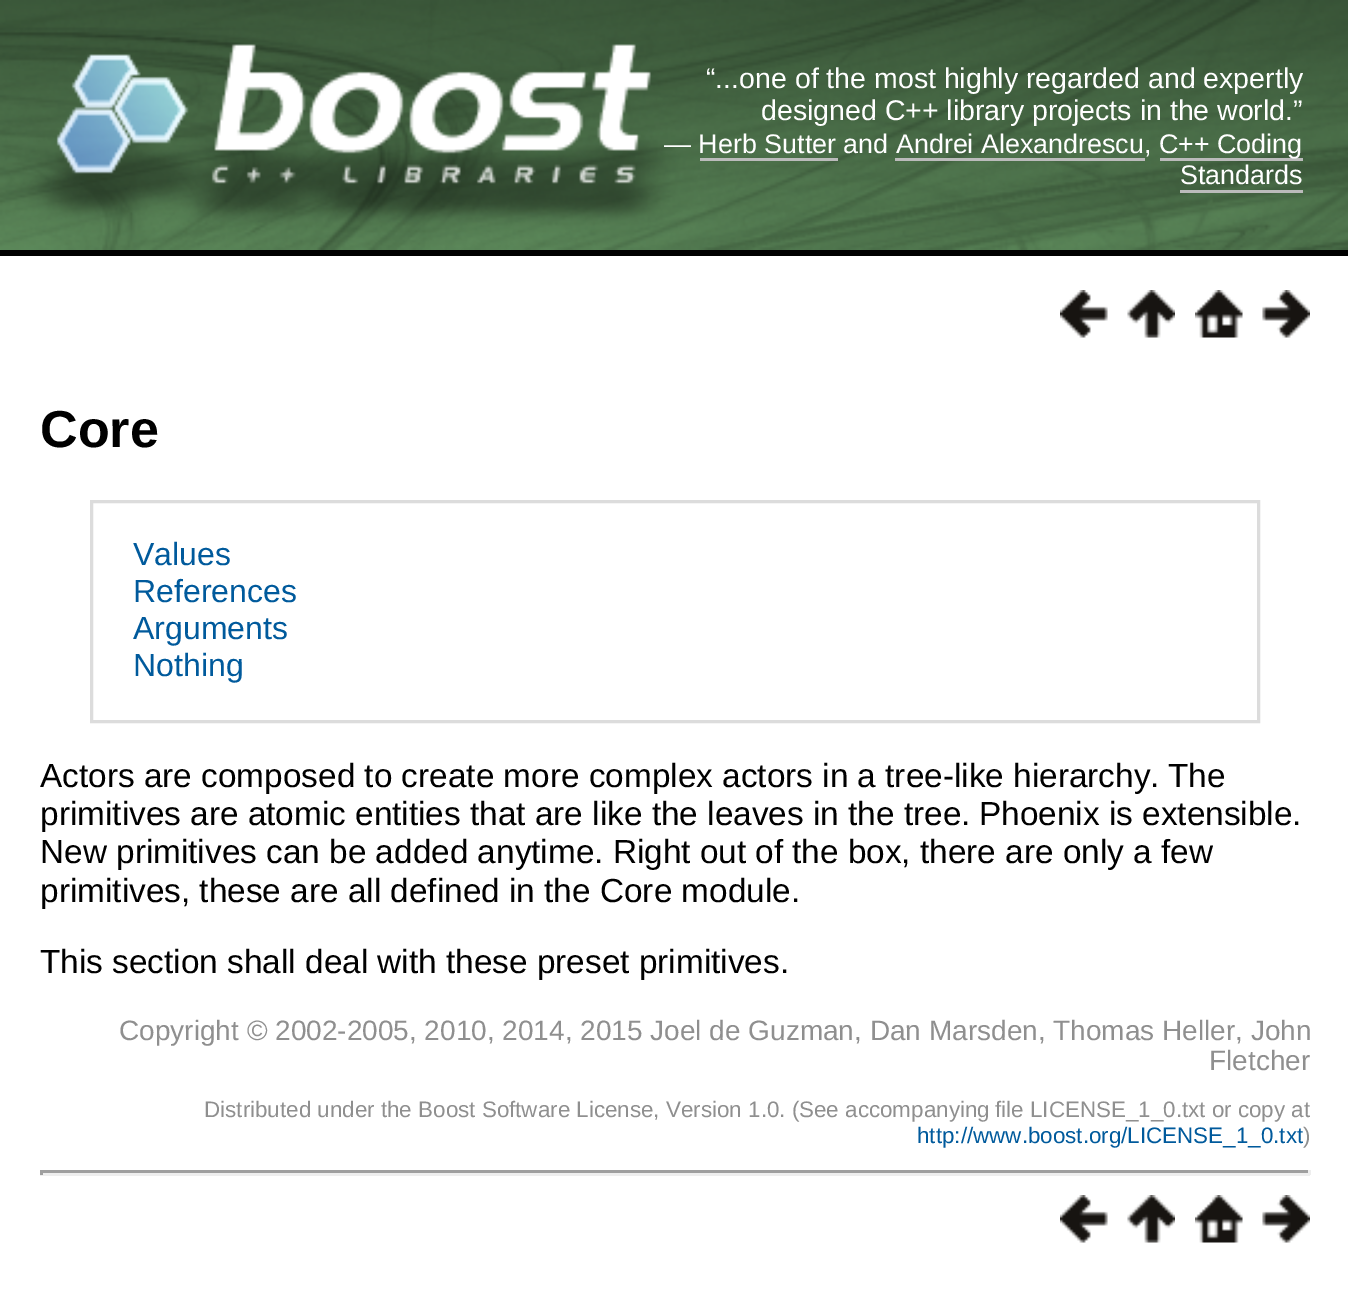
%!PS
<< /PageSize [1348 1290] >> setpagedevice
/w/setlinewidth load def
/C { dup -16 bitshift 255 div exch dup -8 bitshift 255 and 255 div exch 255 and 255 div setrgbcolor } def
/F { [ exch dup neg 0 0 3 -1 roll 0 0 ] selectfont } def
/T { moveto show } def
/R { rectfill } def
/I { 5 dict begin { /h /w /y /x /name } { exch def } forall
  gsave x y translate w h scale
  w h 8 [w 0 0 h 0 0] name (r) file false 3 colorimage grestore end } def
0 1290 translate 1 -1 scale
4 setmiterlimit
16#FFFFFF C
0 0 1348 1290 R
16#000000 C
0 250 1348 6 R
(1.rgb) 0 0 1348 250 I
/LiberationSans-Regular 28.5 F
16#FFFFFF C
(“...one of the most highly regarded and expertly) 706 88 T
(designed C++ library projects in the) 761 120 T
(world.”) 1217 120 T
/LiberationSans-Regular 26.9 F
(— Herb Sutter and Andrei Alexandrescu, C++) 664 153 T
16#BBBBBB C
1160 158 143 3 R
16#FFFFFF C
(Coding) 1217 153 T
16#BBBBBB C
700 158 138 3 R
895 158 250 3 R
16#FFFFFF C
(Standards) 1180 184 T
16#BBBBBB C
1180 190 123 3 R
(2.rgb) 1060 290 48 48 I
(3.rgb) 1127 290 48 48 I
(4.rgb) 1195 290 48 48 I
(5.rgb) 1262 290 48 48 I
/LiberationSans-Bold 52 F
16#000000 C
(Core) 40 447 T
16#DCDCDC C
3 w
91.5 501.5 1167 220 rectstroke
/LiberationSans-Regular 32 F
16#005A9C C
(Values) 133 565 T
(References) 133 602 T
(Arguments) 133 639 T
(Nothing) 133 676 T
/LiberationSans-Regular 33.35 F
16#000000 C
(Actors are composed to create more complex actors in a tree-like hierarchy.) 40 787 T
(The) 1168 787 T
(primitives are atomic entities that are like the leaves in the tree.) 40 825 T
(Phoenix is extensible.) 979 825 T
(New primitives can be added anytime. Right out of) 40 863 T
(the box, there are only a few) 792 863 T
(primitives, these are all defined in the Core module.) 40 902 T
(This section shall deal with these preset primitives.) 40 973 T
/LiberationSans-Regular 28 F
16#8F8F8F C
(Copyright © 2002-2005, 2010, 2014, 2015 Joel de Guzman, Dan Marsden, Thomas Heller, John) 119 1040 T
(Fletcher) 1209 1070 T
/LiberationSans-Regular 22.4 F
(Distributed under the Boost Software License, Version 1.0. \(See accompanying) 204 1117 T
(file LICENSE_1_0.txt or copy at) 995 1117 T
16#005A9C C
(http://www.boost.org/LICENSE_1_0.txt) 917 1143 T
16#8F8F8F C
(\)) 1303 1143 T
16#9F9F9F C
40 1170 1270 3 R
16#EEEEEE C
1308 1170 3 5 R
40 1173 1270 3 R
16#9F9F9F C
40 1170 3 5 R
(6.rgb) 1060 1195 48 48 I
(7.rgb) 1127 1195 48 48 I
(8.rgb) 1195 1195 48 48 I
(9.rgb) 1262 1195 48 48 I
showpage
